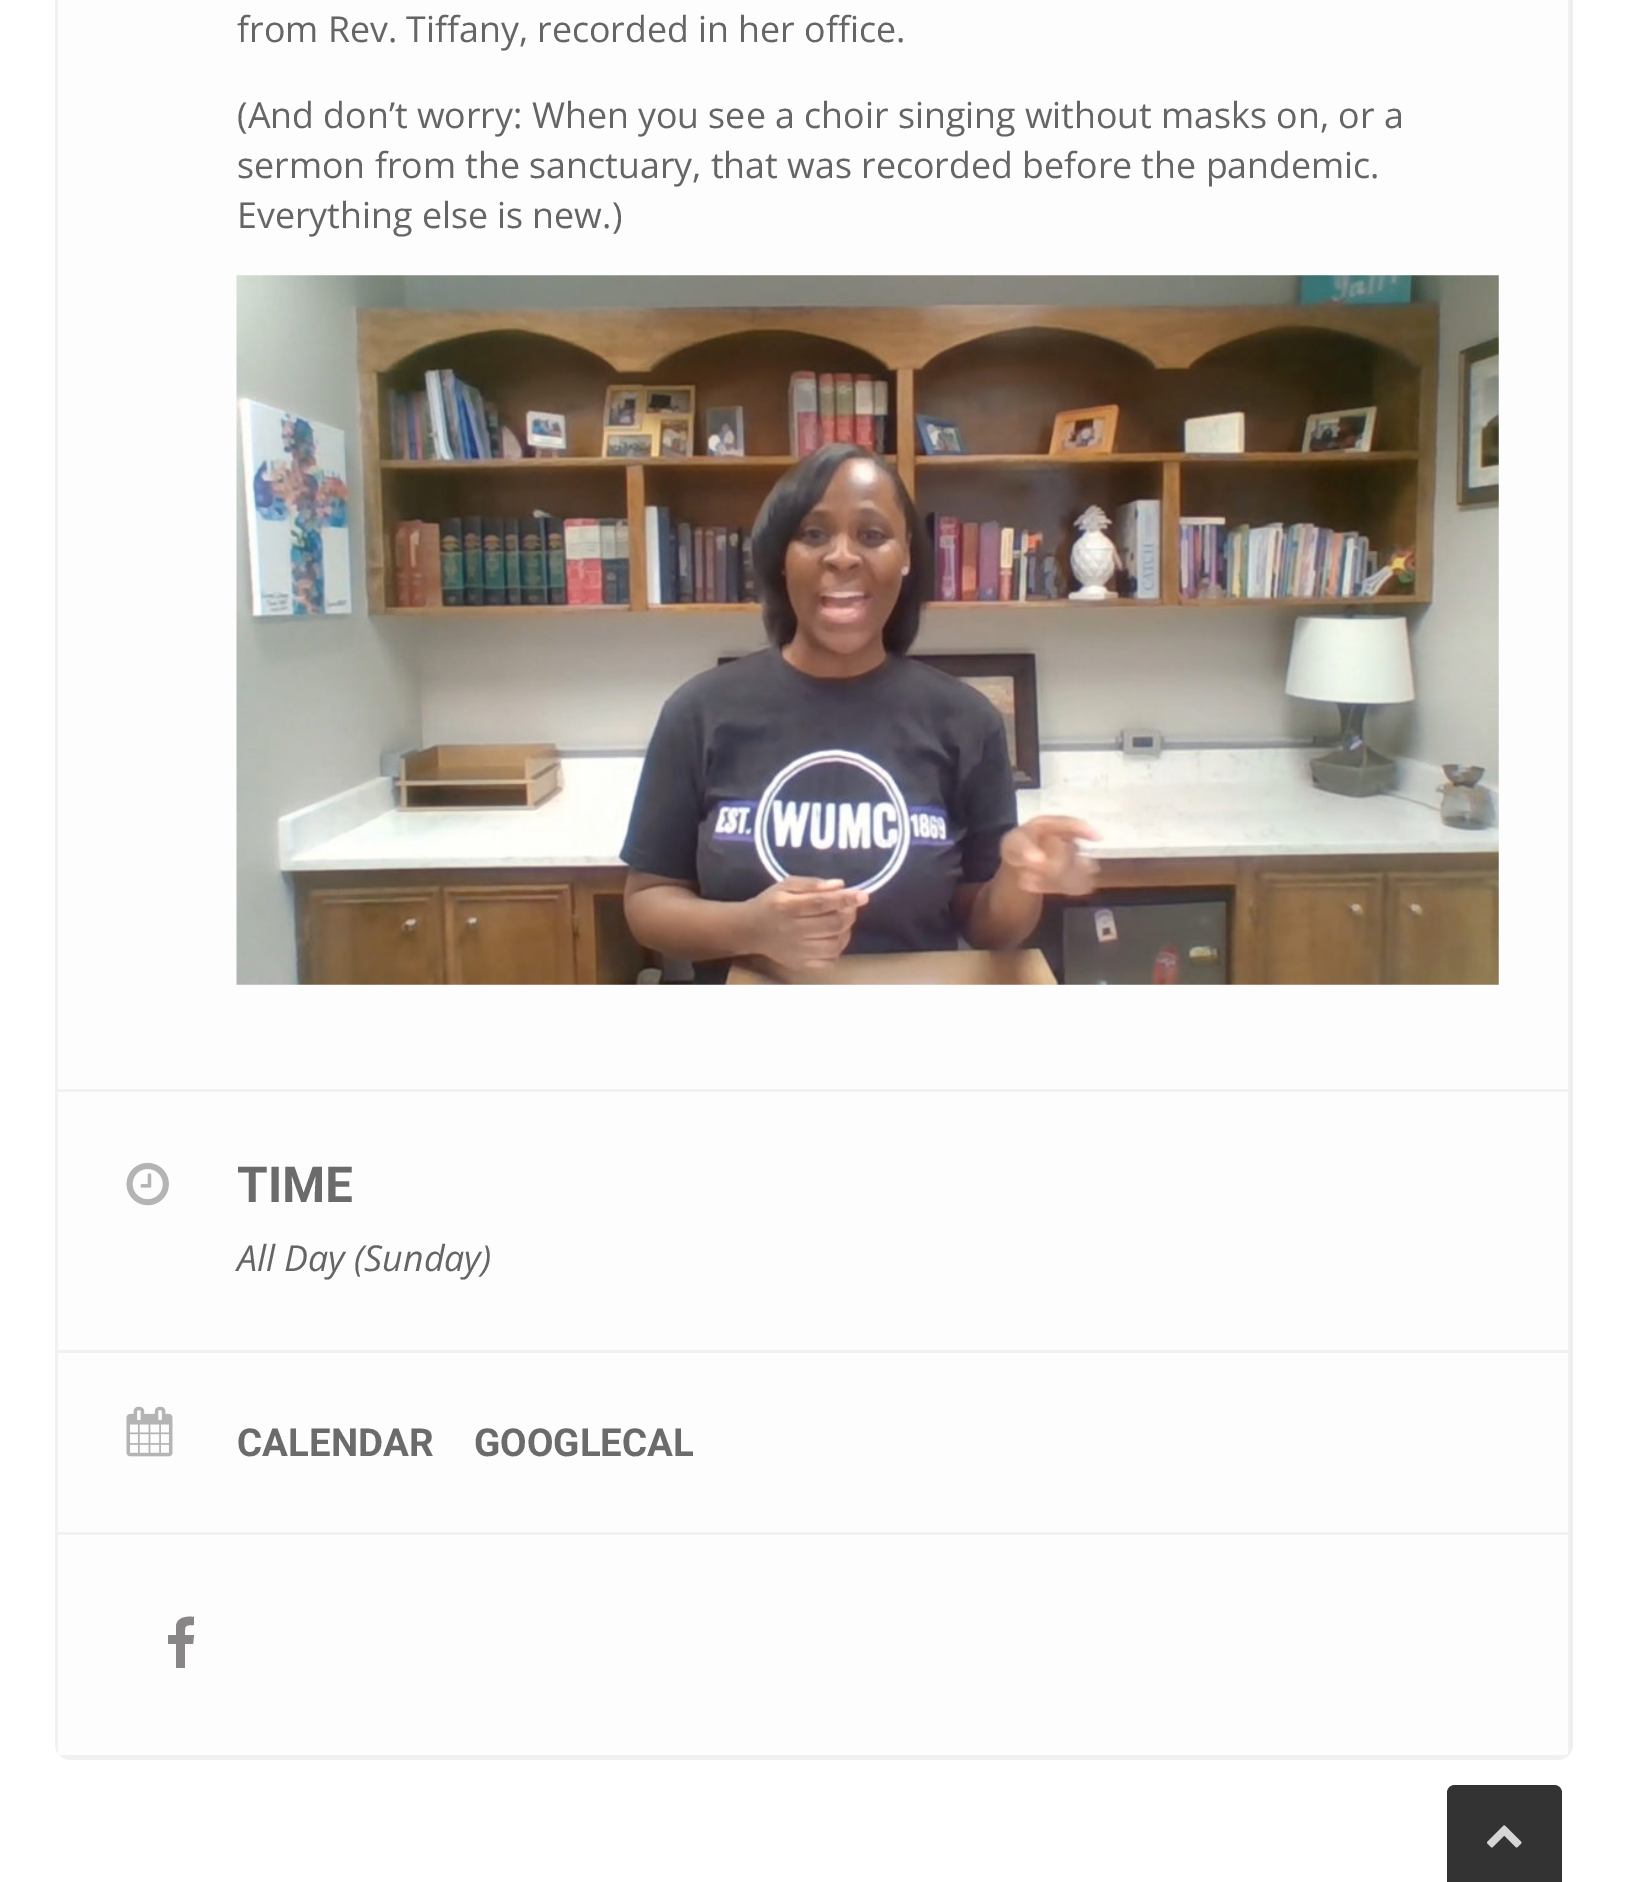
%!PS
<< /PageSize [1627 1882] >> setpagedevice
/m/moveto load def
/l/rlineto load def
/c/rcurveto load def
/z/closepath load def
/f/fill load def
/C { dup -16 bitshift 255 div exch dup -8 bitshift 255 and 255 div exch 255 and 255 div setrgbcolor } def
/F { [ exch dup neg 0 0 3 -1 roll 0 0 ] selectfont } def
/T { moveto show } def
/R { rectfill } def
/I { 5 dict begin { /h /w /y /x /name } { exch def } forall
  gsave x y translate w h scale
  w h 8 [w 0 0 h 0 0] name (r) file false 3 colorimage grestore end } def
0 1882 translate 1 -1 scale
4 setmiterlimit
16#FFFFFF C
0 0 1627 1882 R
16#EFEEEE C
72 -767 m 1484 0 l 10 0 17 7 17 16 c 0 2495 l 0 9 -7 16 -17 16 c -1484 0 l -10 0 -17 -7 -17 -16 c 0 -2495 l 0 -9 7 -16 17 -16 c z 72 -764 m 1484 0 l 8 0 14 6 14 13 c 0 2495 l 0 9 -6 16 -14 16 c -1484 0 l -10 0 -17 -7 -17 -16 c 0 -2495 l 0 -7 7 -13 17 -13 c z eofill
16#FDFDFD C
55 -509 m 0 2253 l 0 9 7 16 17 16 c 1484 0 l 7 0 13 -6 14 -13 c 0 -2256 l z f
16#F1F1F1 C
1568 -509 m 2 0 l 0 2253 l 0 3 -1 6 -2 9 c z f
72 1760 m 1484 0 l 3 0 6 -1 8 -3 c -1502 0 l 3 2 6 3 10 3 c z f
55 -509 m 0 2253 l 0 3 1 6 3 9 c 0 -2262 l z f
58 1089 1510 3 R
/OpenSans-Regular 35.75 F
16#656565 C
(from Rev. Tiffany, recorded in her office.) 237 42 T
(\(And don’t worry: When you see a choir singing without masks on, or a) 237 128 T
(sermon from the sanctuary, that was recorded before the pandemic.) 237 178 T
(Everything else is new.\)) 237 228 T
(1.rgb) 236 275 1263 710 I
16#F1F1F1 C
58 1350 1510 3 R
(2.rgb) 126 1162 43 44 I
/Roboto-Bold 49.5 F
16#6B6B6B C
(TIME) 237 1202 T
/OpenSans-Italic 35.75 F
16#656565 C
(All Day \(Sunday\)) 237 1271 T
16#F1F1F1 C
58 1532 1510 3 R
(3.rgb) 126 1406 47 51 I
/Roboto-Bold 38.5 F
16#6B6B6B C
(CALENDAR) 237 1456 T
(GOOGLECAL) 474 1456 T
16#FDFDFD C
58 1535 m 1510 0 l 0 218 l -4 4 l -1502 0 l -4 -4 l z f
16#F1F1F1 C
64 1758 m -4 -3 l 1506 0 l -3 3 l z f
16#888686 C
194 1617 m 0 8 l -10 0 -9 1 -9 10 c 9 0 l -1 9 l -8 0 l 0 24 l -9 0 l 0 -24 l -8 0 l 0 -9 l 8 0 l 0 -9 l 1 -9 11 -10 18 -9 c z f
16#333333 C
1455 1785 m 99 0 l 4.5 0 8 3.5 8 8 c 0 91 l -115 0 l 0 -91 l 0 -4.5 3.5 -8 8 -8 c z f
(4.rgb) 1487 1825 35 23 I
showpage
